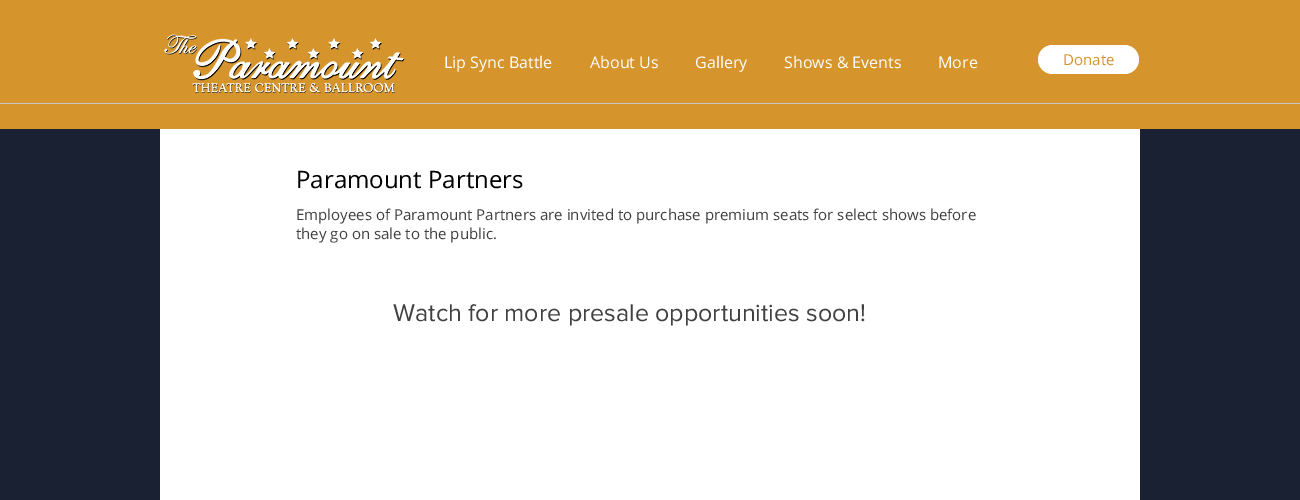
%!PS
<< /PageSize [1300 500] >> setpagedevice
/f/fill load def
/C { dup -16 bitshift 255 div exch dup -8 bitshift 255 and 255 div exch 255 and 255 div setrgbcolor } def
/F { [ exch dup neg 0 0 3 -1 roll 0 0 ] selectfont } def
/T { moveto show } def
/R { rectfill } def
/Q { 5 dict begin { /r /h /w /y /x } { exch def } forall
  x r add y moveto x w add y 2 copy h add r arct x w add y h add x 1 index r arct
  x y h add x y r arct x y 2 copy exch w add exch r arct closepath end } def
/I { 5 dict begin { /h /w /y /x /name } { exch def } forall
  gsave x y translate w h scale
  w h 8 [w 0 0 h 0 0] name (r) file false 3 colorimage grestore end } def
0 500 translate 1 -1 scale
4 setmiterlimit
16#1A2133 C
0 0 1300 500 R
16#D5952C C
0 0 1300 129 R
(1.rgb) 164 34 241 59 I
/OpenSans-Regular 16 F
16#FFFFFF C
(Lip Sync Battle) 444 68 T
(About Us) 590 68 T
(Gallery) 695 68 T
(Shows & Events) 784 68 T
(More) 938 68 T
1038 45 101 29 14.5 Q f
/OpenSans-Regular 15 F
16#D5952C C
(Donate) 1063 65 T
16#C7C7C7 C
0 103 1300 1 R
16#FFFFFF C
160 129 980 371 R
/OpenSans-Regular 24 F
16#000000 C
(Paramount Partners) 296 188 T
/OpenSans-Regular 15 F
16#414141 C
(Employees of Paramount Partners are invited to purchase premium seats for select shows before) 296 220 T
(they go on sale to the public.) 296 239 T
/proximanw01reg-Regular 25 F
(Watch for more presale opportunities soon!) 393 321 T
showpage
